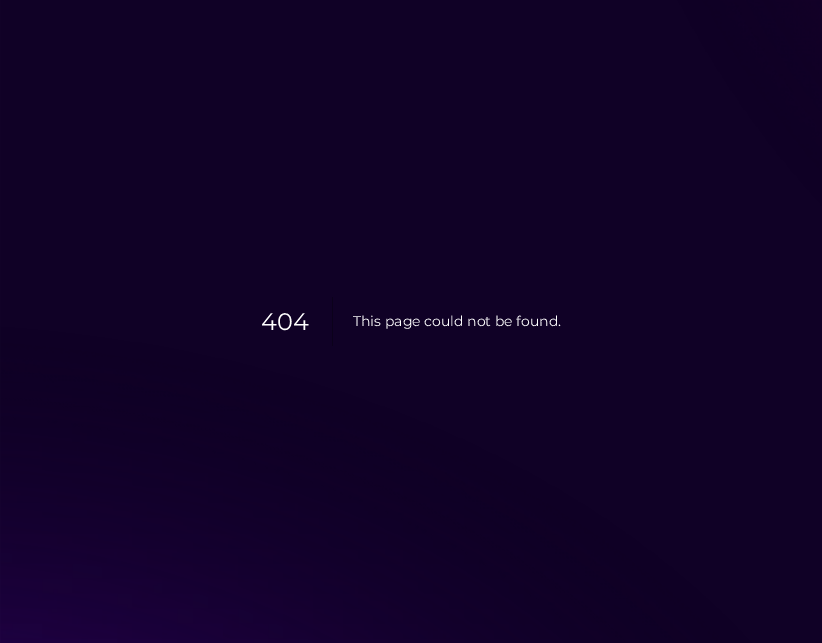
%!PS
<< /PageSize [822 643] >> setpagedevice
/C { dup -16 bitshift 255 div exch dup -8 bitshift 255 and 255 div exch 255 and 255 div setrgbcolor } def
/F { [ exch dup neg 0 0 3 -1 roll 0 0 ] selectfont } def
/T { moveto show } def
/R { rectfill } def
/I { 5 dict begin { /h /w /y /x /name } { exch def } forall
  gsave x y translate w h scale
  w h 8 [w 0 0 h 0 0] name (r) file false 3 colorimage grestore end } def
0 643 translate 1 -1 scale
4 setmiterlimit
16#FFFFFF C
0 0 822 643 R
(1.rgb) 0 0 822 643 I
16#0B011B C
332 297 1 49 R
/Montserrat-Regular 24 F
16#FFFFFF C
(404) 261 330 T
/Montserrat-Regular 14 F
(This page could not be found.) 353 326 T
showpage
